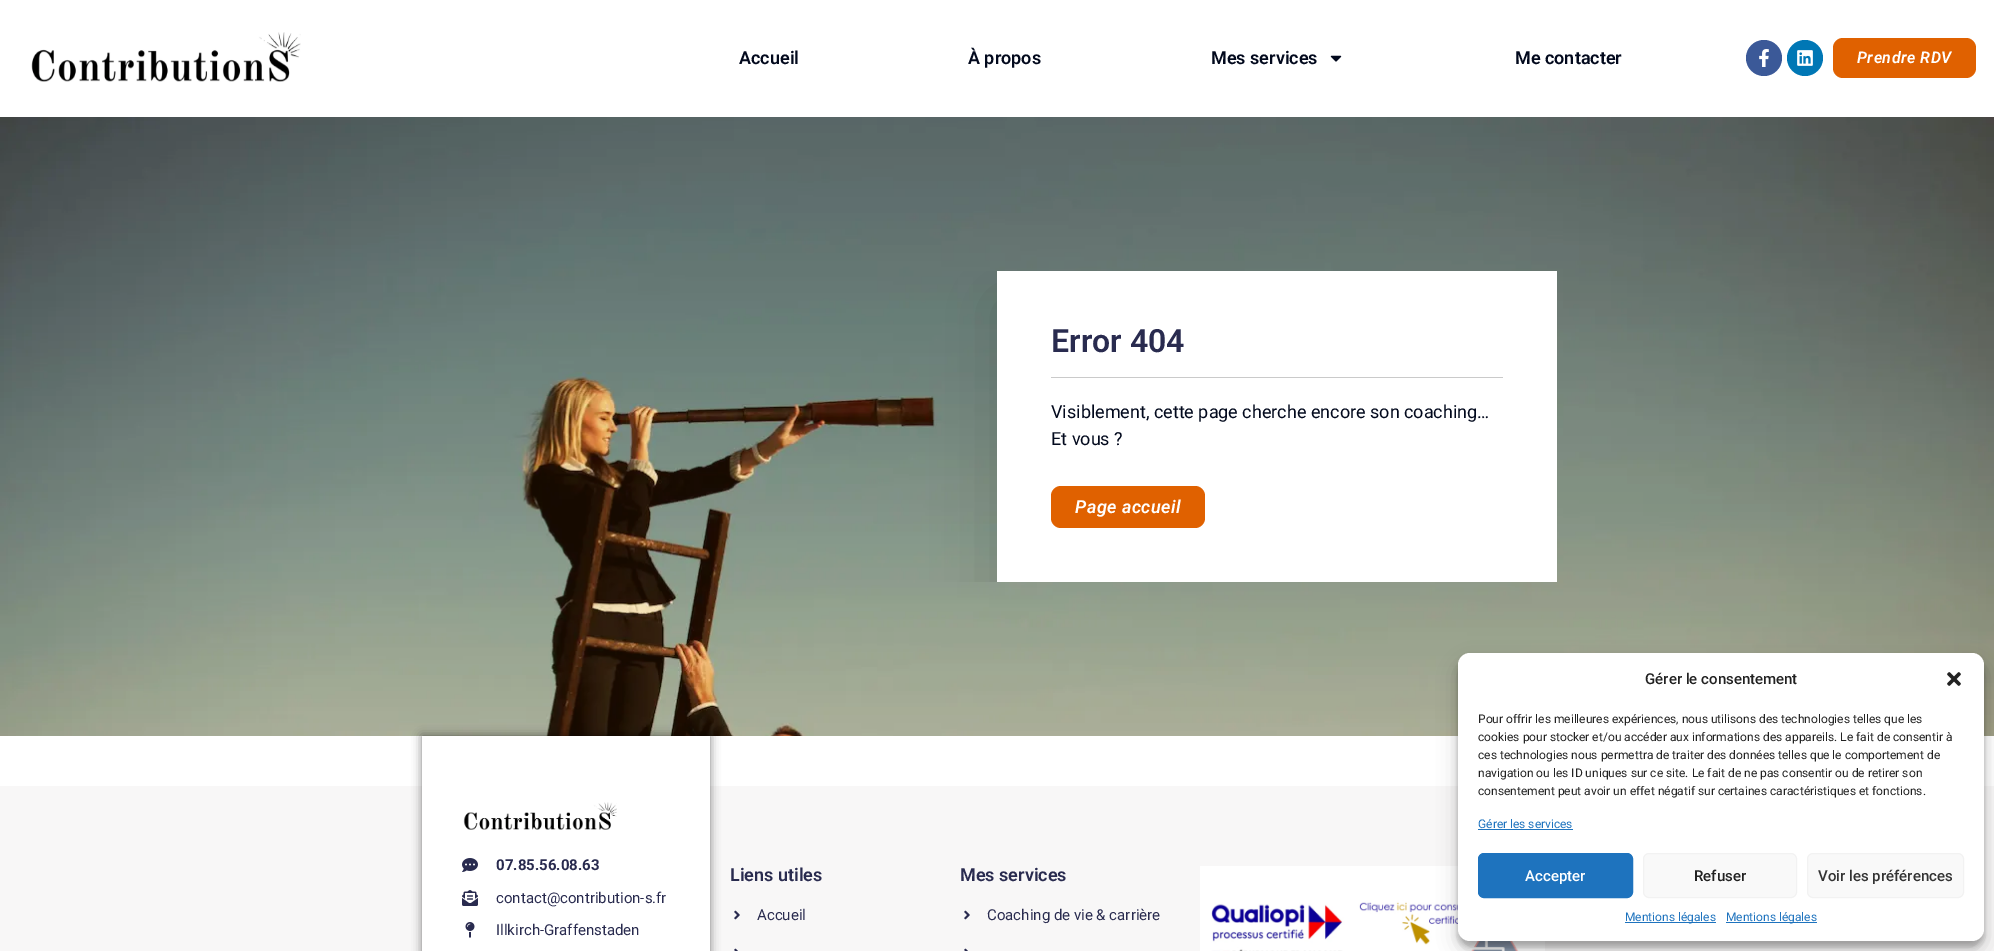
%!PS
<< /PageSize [1994 951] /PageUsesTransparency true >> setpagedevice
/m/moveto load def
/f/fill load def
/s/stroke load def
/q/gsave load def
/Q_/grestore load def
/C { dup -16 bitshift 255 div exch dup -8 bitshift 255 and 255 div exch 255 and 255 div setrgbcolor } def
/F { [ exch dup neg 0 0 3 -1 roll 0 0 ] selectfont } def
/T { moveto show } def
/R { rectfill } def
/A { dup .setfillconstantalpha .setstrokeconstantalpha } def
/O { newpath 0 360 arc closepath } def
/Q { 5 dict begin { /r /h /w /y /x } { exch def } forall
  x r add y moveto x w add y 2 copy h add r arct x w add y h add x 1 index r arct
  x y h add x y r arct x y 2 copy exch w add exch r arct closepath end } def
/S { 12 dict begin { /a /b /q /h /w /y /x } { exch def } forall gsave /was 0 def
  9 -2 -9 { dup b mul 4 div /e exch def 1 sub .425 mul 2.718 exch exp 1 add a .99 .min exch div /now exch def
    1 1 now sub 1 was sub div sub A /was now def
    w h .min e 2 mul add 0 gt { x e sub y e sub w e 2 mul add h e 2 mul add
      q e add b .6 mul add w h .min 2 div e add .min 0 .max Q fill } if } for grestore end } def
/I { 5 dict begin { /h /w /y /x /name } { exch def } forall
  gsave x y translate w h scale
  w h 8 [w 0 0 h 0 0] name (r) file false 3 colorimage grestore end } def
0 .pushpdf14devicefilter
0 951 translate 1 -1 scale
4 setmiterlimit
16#FFFFFF C
0 0 1994 951 R
(1.rgb) 31 32 270 50 I
/Roboto-SemiBold 18 F
16#02091D C
(Accueil) 739 64 T
(À propos) 968 64 T
(Mes services) 1211 64 T
(2.rgb) 1330 55 12 7 I
(Me contacter) 1515 64 T
16#3B5998 C
1764 58 18 O f
(3.rgb) 1759 49 10 18 I
16#0077B5 C
1805 58 18 O f
(4.rgb) 1797 50 16 16 I
16#E06100 C
1833 38 143 40 10 Q f
/Roboto-SemiBoldItalic 16 F
16#FFFFFF C
1857 63 m .5 0 (Prendre RDV) ashow
(5.rgb) 0 117 1994 619 I
q
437 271 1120 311 rectclip
16#000000 C
997 301 560 311 0 30 .15 S
Q_
997 271 560 311 R
/Roboto-SemiBold 32 F
16#292B4F C
(Error 404) 1051 352 T
16#CACACA C
1051 377 452 1 R
/Roboto-Regular 18 F
16#02091D C
(Visiblement, cette page cherche encore son coaching…) 1051 418 T
(Et vous ?) 1051 445 T
16#E06100 C
1051 486 154 42 10 Q f
/Roboto-SemiBoldItalic 18 F
16#FFFFFF C
1075 513 m .5 0 (Page accueil) ashow
16#F8F7F7 C
0 786 1994 165 R
16#000000 C
422 736 288 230 0 5 .5 S
16#FFFFFF C
422 736 288 215 R
(6.rgb) 463 802 154 28 I
(7.rgb) 462 858 16 14 I
/Roboto-Bold 15 F
16#292B4F C
(07.85.56.08.63) 496 870 T
(8.rgb) 462 890 16 16 I
/Roboto-Regular 15 F
(contact@contribution-s.fr) 496 903 T
(9.rgb) 465 922 10 16 I
(Illkirch-Graffenstaden) 496 935 T
/Roboto-SemiBold 18 F
(Liens utiles) 730 881 T
(10.rgb) 734 910 6 10 I
/Roboto-Regular 15 F
(Accueil) 757 920 T
(11.rgb) 734 948 4 3 I
/Roboto-SemiBold 18 F
(Mes services) 960 881 T
(10.rgb) 964 910 6 10 I
/Roboto-Regular 15 F
(Coaching de vie & carrière) 987 920 T
(11.rgb) 964 948 4 3 I
(12.rgb) 1200 866 345 85 I
16#000000 C
1458 659 526 288 12 3 .23 S
1458 663 526 288 12 10 .19 S
16#FFFFFF C
1458 653 526 288 12 Q f
/Roboto-Medium 15 F
16#222222 C
(Gérer le consentement) 1645 684 T
(13.rgb) 1947 672 14 14 I
/Roboto-Regular 12 F
(Pour offrir les meilleures expériences, nous utilisons des technologies telles que les) 1478 723 T
(cookies pour stocker et/ou accéder aux informations des appareils. Le fait de consentir à) 1478 741 T
(ces technologies nous permettra de traiter des données telles que le comportement de) 1478 759 T
(navigation ou les ID uniques sur ce site. Le fait de ne pas consentir ou de retirer son) 1478 777 T
(consentement peut avoir un effet négatif sur certaines caractéristiques et fonctions.) 1478 795 T
16#1E73BE C
(Gérer les services) 1478 828 T
1478 829 95 1 R
1478.5 853.5 154 44 5.5 Q q f Q_
s
/Roboto-Medium 15 F
16#FFFFFF C
(Accepter) 1525 881 T
16#F9F9F9 C
1643.5 853.5 153 44 5.5 Q q f Q_
16#F2F2F2 C
s
16#222222 C
(Refuser) 1694 881 T
16#F9F9F9 C
1807.5 853.5 156 44 5.5 Q q f Q_
16#F2F2F2 C
s
16#333333 C
(Voir les préférences) 1818 881 T
16#1E73BE C
1625 922 91 1 R
/Roboto-Regular 12 F
(Mentions légales) 1625 921 T
1726 922 91 1 R
(Mentions légales) 1726 921 T
.poppdf14devicefilter showpage
